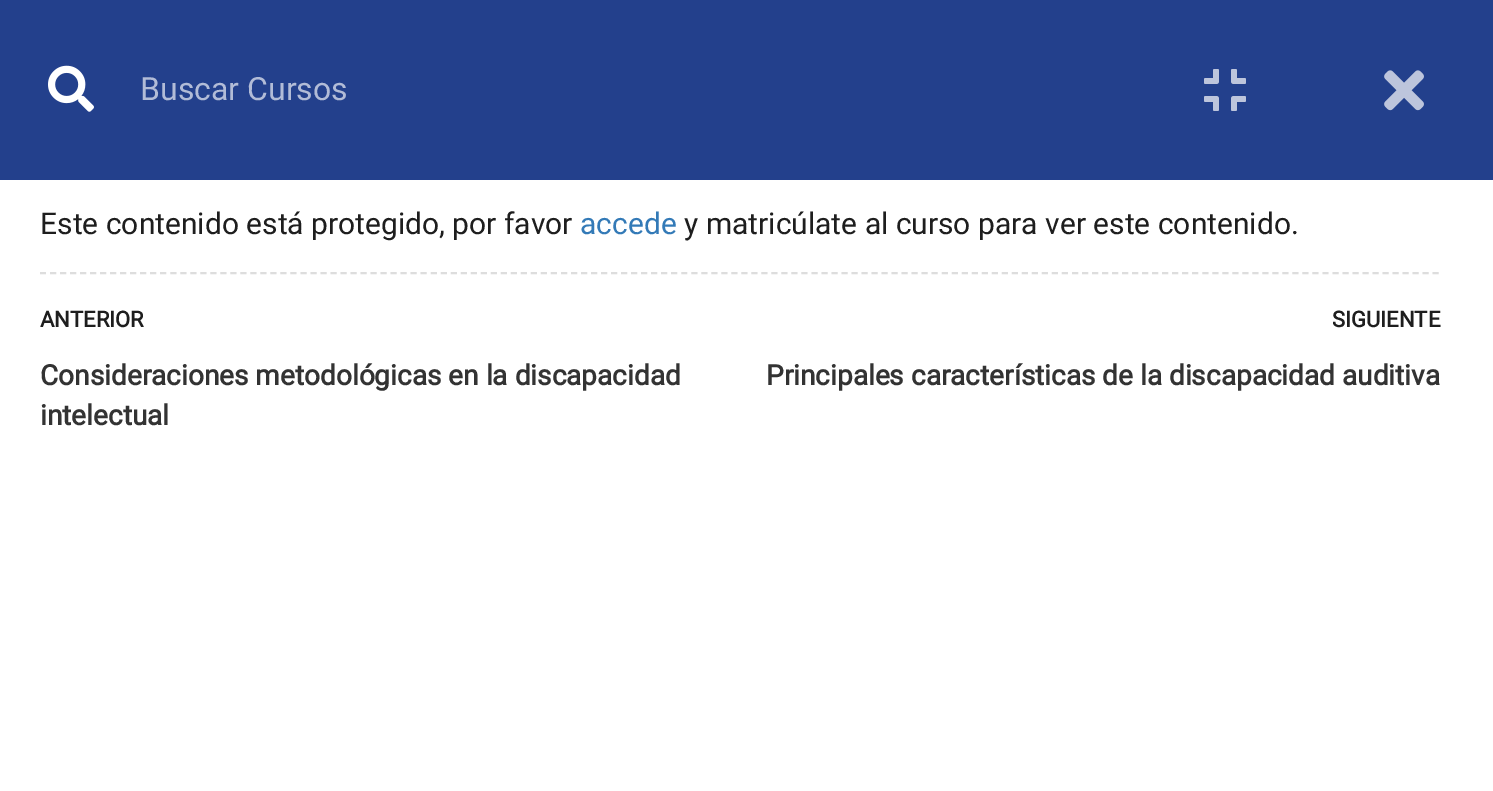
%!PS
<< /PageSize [1493 791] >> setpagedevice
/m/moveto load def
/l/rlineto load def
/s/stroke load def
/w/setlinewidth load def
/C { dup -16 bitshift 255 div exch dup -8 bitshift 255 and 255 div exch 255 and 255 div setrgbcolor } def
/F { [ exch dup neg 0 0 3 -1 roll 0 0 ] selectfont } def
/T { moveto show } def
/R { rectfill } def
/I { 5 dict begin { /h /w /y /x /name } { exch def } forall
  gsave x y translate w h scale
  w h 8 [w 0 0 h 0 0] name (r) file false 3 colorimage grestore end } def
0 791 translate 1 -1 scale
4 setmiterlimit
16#FFFFFF C
0 0 1493 791 R
16#23408C C
0 0 1493 180 R
(1.rgb) 48 65 46 47 I
/Roboto-Regular 32 F
16#B2BCD7 C
(Buscar Cursos) 140 100 T
(2.rgb) 1204 69 42 42 I
(3.rgb) 1384 70 40 41 I
/Roboto-Regular 30 F
16#1E1E1E C
(Este contenido está protegido, por favor) 40 234 T
16#337AB7 C
(accede) 580 234 T
16#1E1E1E C
(y matricúlate al curso para ver este contenido.) 684 234 T
16#DDDDDD C
2 w
[6 4.02] 0 setdash
40 273 m 1400 0 l s
/Roboto-Bold 22 F
16#1E1E1E C
(ANTERIOR) 40 327 T
/Roboto-Bold 28 F
16#333333 C
(Consideraciones metodológicas en la discapacidad) 40 385 T
(intelectual) 40 425 T
/Roboto-Bold 22 F
16#1E1E1E C
(SIGUIENTE) 1332 327 T
/Roboto-Bold 28 F
16#333333 C
(Principales características de la discapacidad auditiva) 766 385 T
showpage
